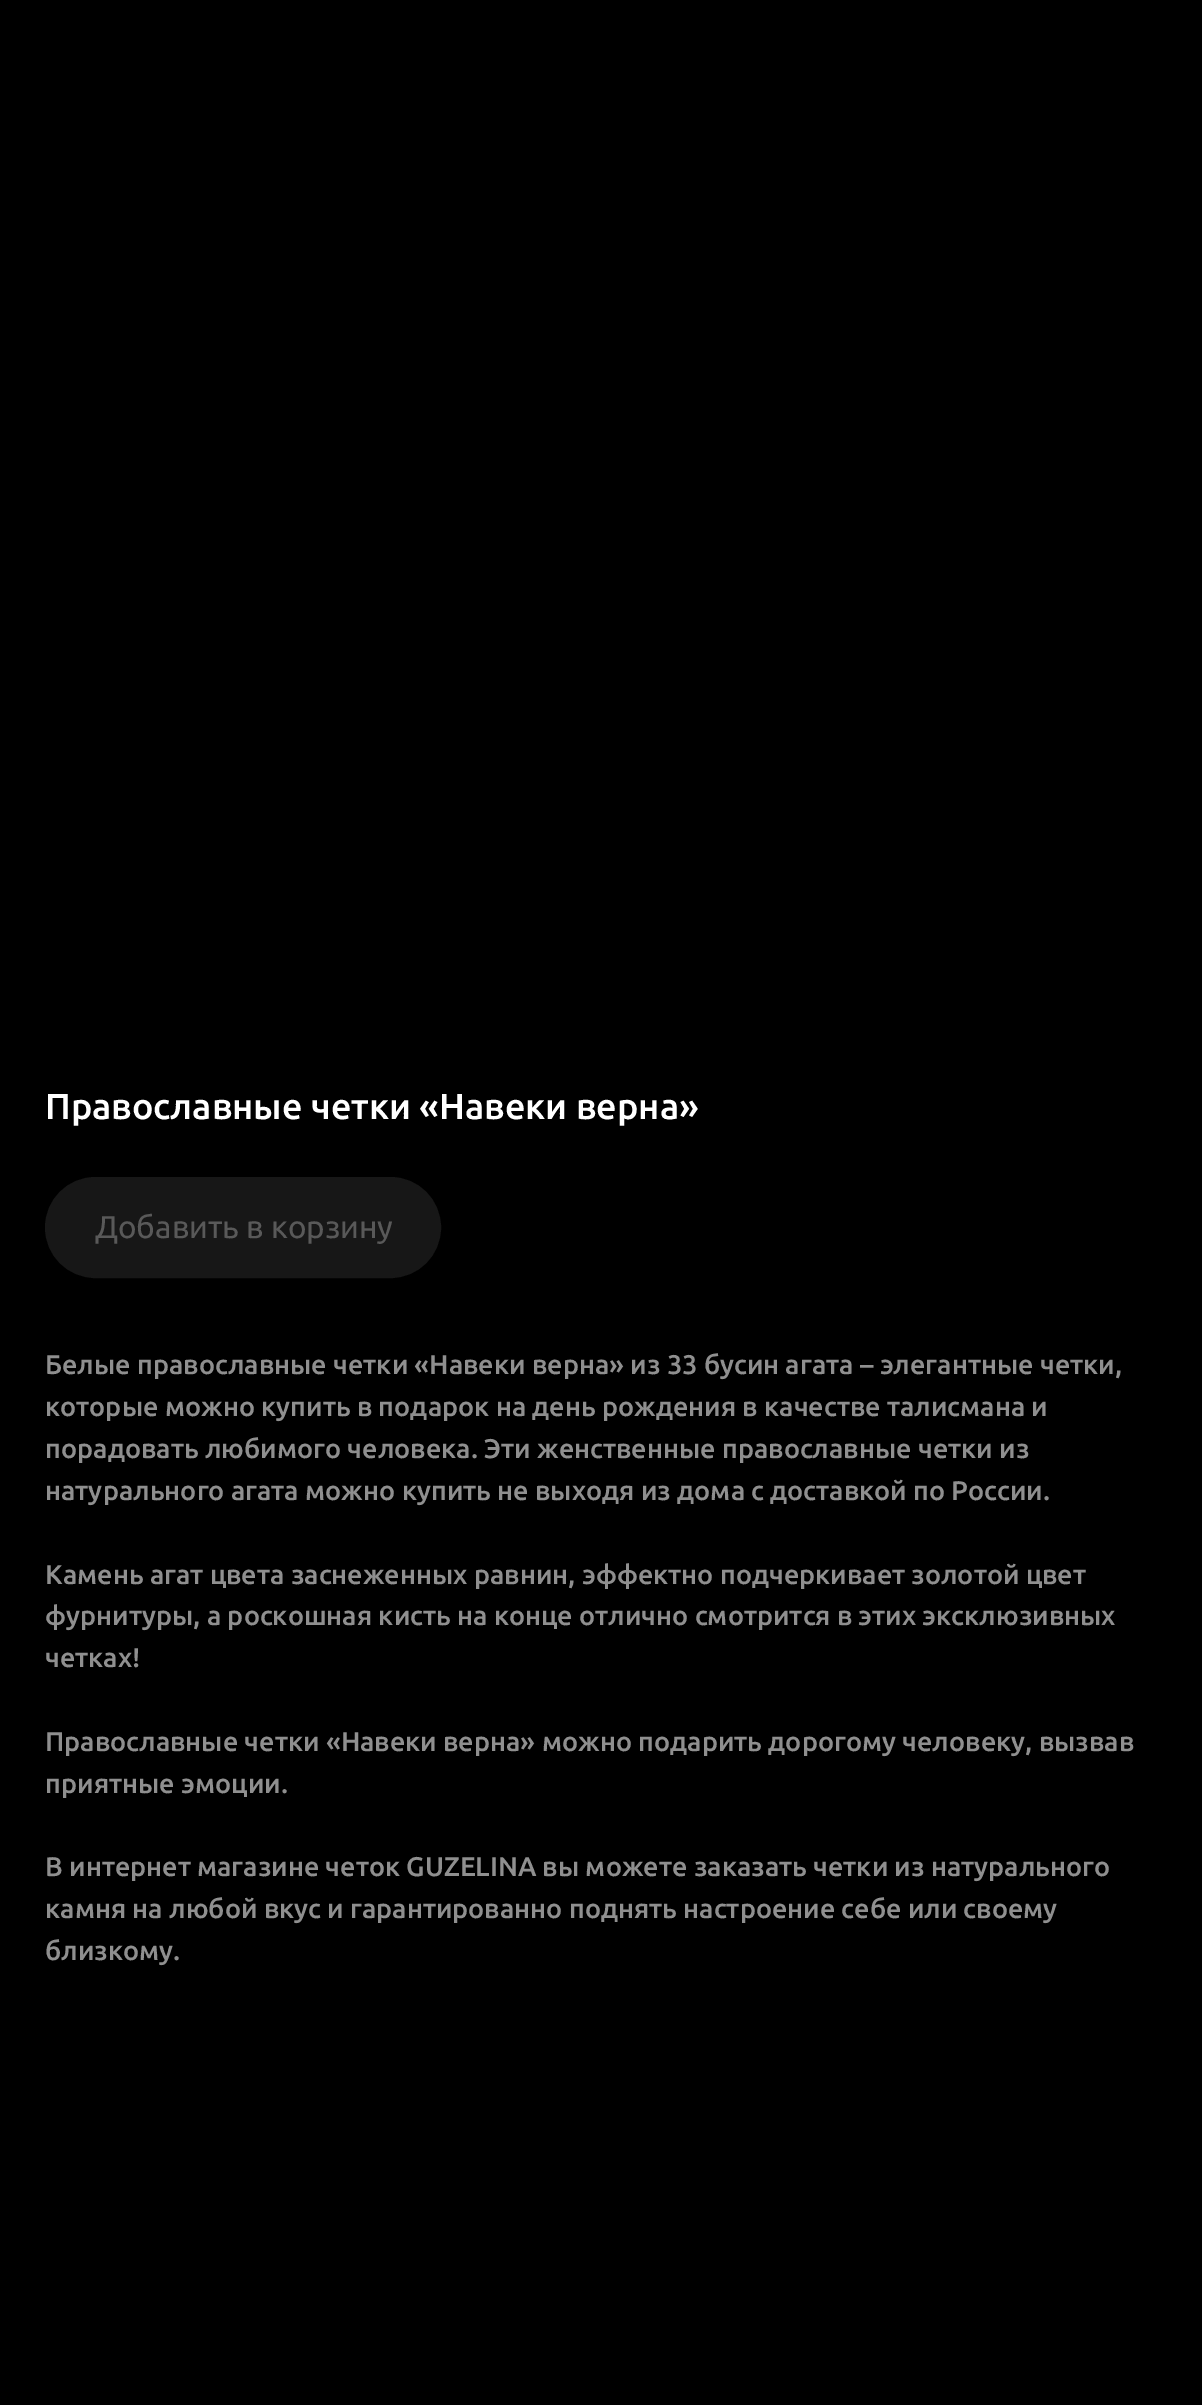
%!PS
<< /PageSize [1202 2405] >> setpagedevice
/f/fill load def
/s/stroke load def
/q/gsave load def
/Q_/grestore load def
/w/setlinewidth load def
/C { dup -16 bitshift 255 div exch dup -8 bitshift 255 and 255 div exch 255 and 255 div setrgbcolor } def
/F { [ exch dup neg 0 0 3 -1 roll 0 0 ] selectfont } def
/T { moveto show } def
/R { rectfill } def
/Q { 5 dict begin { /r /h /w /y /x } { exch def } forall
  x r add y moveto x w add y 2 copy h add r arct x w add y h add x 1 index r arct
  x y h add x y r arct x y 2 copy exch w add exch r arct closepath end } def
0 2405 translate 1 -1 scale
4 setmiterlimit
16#000000 C
0 0 1202 2405 R
/Ubuntu-Medium 36 F
16#FFFFFF C
(Православные четки «Навеки верна») 45 1119 T
16#171717 C
47.5 1179.5 391 96 48 Q q f Q_
5 w
s
/Ubuntu-Regular 31.5 F
16#595959 C
(Добавить в корзину) 95 1238 T
/Ubuntu-Medium 27 F
16#8F8F8F C
(Белые православные четки «Навеки верна» из 33 бусин агата – элегантные четки,) 45 1374 T
(которые можно купить в подарок на день рождения в качестве талисмана и) 45 1416 T
(порадовать любимого человека. Эти женственные православные четки из) 45 1458 T
(натурального агата можно купить не выходя из дома с доставкой по России.) 45 1500 T
(Камень агат цвета заснеженных равнин, эффектно подчеркивает золотой цвет) 45 1584 T
(фурнитуры, а роскошная кисть на конце отлично смотрится в этих эксклюзивных) 45 1625 T
(четках!) 45 1667 T
(Православные четки «Навеки верна» можно подарить дорогому человеку, вызвав) 45 1751 T
(приятные эмоции.) 45 1793 T
(В интернет магазине четок GUZELINA вы можете заказать четки из натурального) 45 1876 T
(камня на любой вкус и гарантированно поднять настроение себе или своему) 45 1918 T
(близкому.) 45 1960 T
showpage
